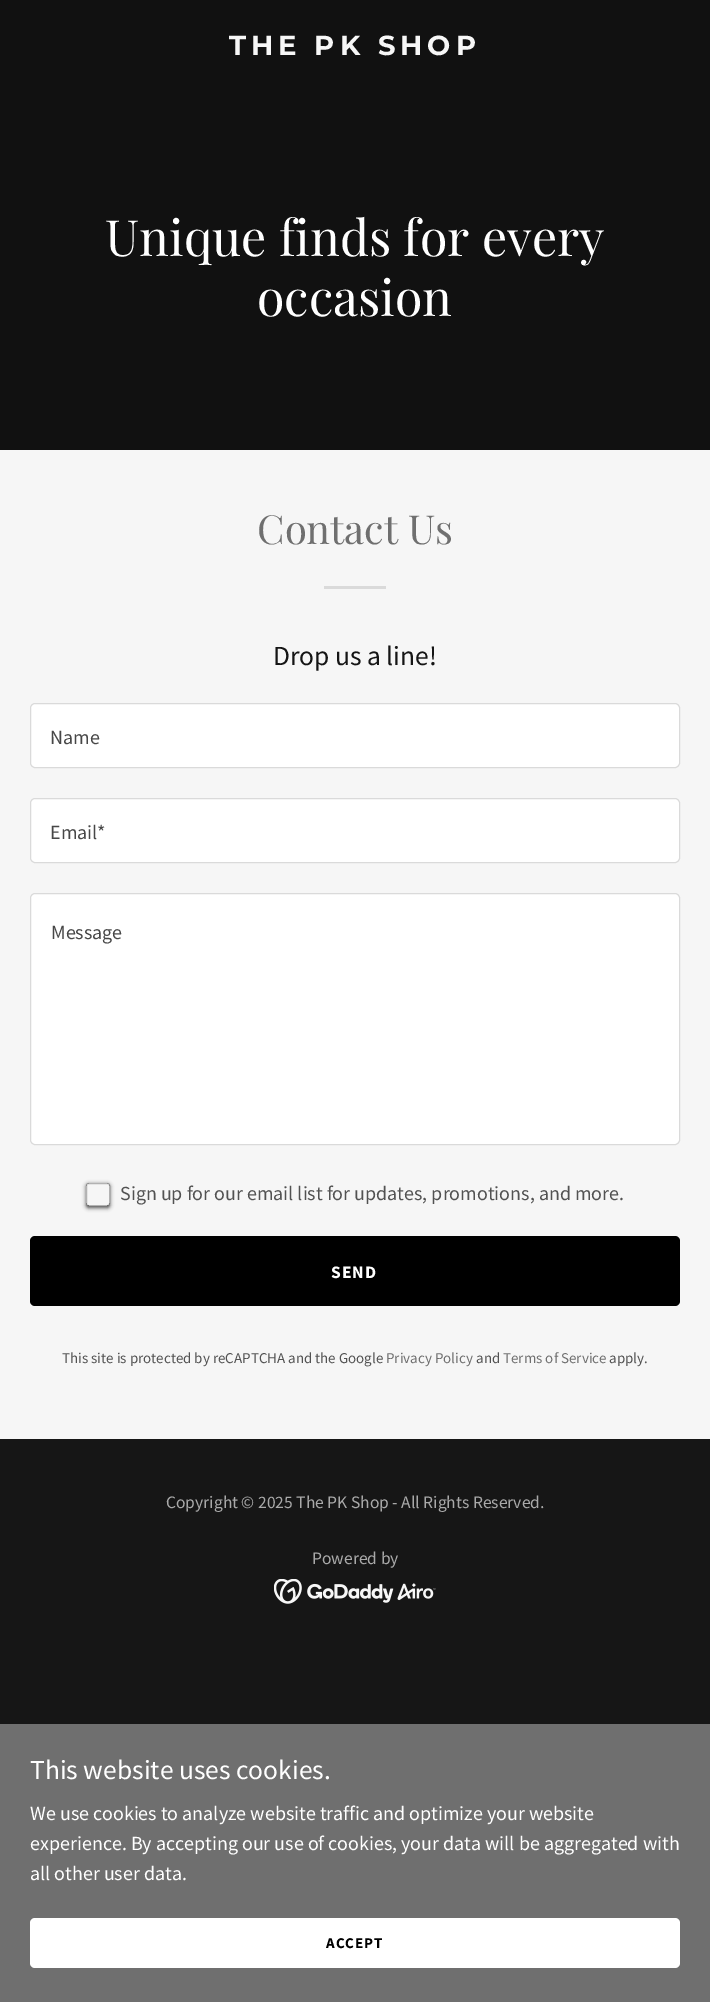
%!PS
<< /PageSize [710 2002] /PageUsesTransparency true >> setpagedevice
/m/moveto load def
/l/rlineto load def
/c/rcurveto load def
/z/closepath load def
/f/fill load def
/s/stroke load def
/q/gsave load def
/Q_/grestore load def
/C { dup -16 bitshift 255 div exch dup -8 bitshift 255 and 255 div exch 255 and 255 div setrgbcolor } def
/F { [ exch dup neg 0 0 3 -1 roll 0 0 ] selectfont } def
/T { moveto show } def
/R { rectfill } def
/A { dup .setfillconstantalpha .setstrokeconstantalpha } def
/Q { 5 dict begin { /r /h /w /y /x } { exch def } forall
  x r add y moveto x w add y 2 copy h add r arct x w add y h add x 1 index r arct
  x y h add x y r arct x y 2 copy exch w add exch r arct closepath end } def
/S { 12 dict begin { /a /b /q /h /w /y /x } { exch def } forall gsave /was 0 def
  9 -2 -9 { dup b mul 4 div /e exch def 1 sub .425 mul 2.718 exch exp 1 add a .99 .min exch div /now exch def
    1 1 now sub 1 was sub div sub A /was now def
    w h .min e 2 mul add 0 gt { x e sub y e sub w e 2 mul add h e 2 mul add
      q e add b .6 mul add w h .min 2 div e add .min 0 .max Q fill } if } for grestore end } def
/I { 5 dict begin { /h /w /y /x /name } { exch def } forall
  gsave x y translate w h scale
  w h 8 [w 0 0 h 0 0] name (r) file false 3 colorimage grestore end } def
0 .pushpdf14devicefilter
0 2002 translate 1 -1 scale
4 setmiterlimit
16#161616 C
0 0 710 2002 R
16#111111 C
0 0 710 450 R
/Montserrat-Bold 27.5 F
16#F7F7F7 C
229 55 m 5 0 (THE PK SHOP) ashow
/PlayfairDisplay-Regular 50 F
16#FFFFFF C
(Unique finds for every) 105 256 T
(occasion) 257 316 T
16#F6F6F6 C
0 450 710 989 R
/PlayfairDisplay-Regular 40 F
16#6F6F6F C
(Contact Us) 257 544 T
16#DADADA C
324 586 62 3 R
/SourceSansPro-Regular 27.5 F
16#151515 C
(Drop us a line!) 273 665 T
16#FFFFFF C
30.5 703.5 649 64 4.5 Q q f Q_
16#DADADA C
s
/SourceSansPro-Regular 20 F
16#474747 C
(Name) 50 744 T
16#FFFFFF C
30.5 798.5 649 64 4.5 Q q f Q_
16#DADADA C
s
16#474747 C
(Email*) 50 839 T
16#FFFFFF C
30.5 893.5 649 251 4.5 Q q f Q_
16#DADADA C
s
16#474747 C
(Message) 51 939 T
q
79 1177 m 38 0 l 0 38 l -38 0 l z 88.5 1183 m 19 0 l 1.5 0 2.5 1 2.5 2.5 c 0 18 l 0 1.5 -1 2.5 -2.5 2.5 c -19 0 l -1.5 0 -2.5 -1 -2.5 -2.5 c 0 -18 l 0 -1.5 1 -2.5 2.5 -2.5 c z eoclip newpath
16#525252 C
86 1184 24 24 2.5 2 1 S
Q_
0.5 A
16#6F6F6F C
86.5 1183.5 23 22 2 Q s
1 A
16#525252 C
(Sign up for our email list for updates, promotions, and more.) 120 1200 T
16#000000 C
30 1236 650 70 5 Q f
/SourceSansPro-Bold 17.5 F
16#FFFFFF C
331 1278 m 1 0 (SEND) ashow
/SourceSansPro-Regular 15 F
16#525252 C
(This site is protected by reCAPTCHA and the Google) 62 1363 T
16#6F6F6F C
(Privacy Policy) 386 1363 T
16#525252 C
(and) 476 1363 T
16#6F6F6F C
(Terms of Service) 503 1363 T
16#525252 C
(apply.) 609 1363 T
/SourceSansPro-Regular 17.5 F
16#A9A9A9 C
(Copyright © 2025 The PK Shop - All Rights Reserved.) 166 1508 T
(Powered by) 312 1564 T
(1.rgb) 274 1579 162 25 I
16#6F6F6F C
0 1724 710 278 R
/SourceSansPro-Regular 27.5 F
16#FFFFFF C
(This website uses cookies.) 30 1779 T
/SourceSansPro-Regular 20 F
(We use cookies to analyze website traffic and optimize your website) 30 1820 T
(experience. By accepting our use of cookies, your data will be aggregated with) 30 1850 T
(all other user data.) 30 1880 T
30 1918 650 50 5 Q f
/SourceSansPro-Bold 15 F
16#000000 C
326 1948 m 1 0 (ACCEPT) ashow
.poppdf14devicefilter showpage
